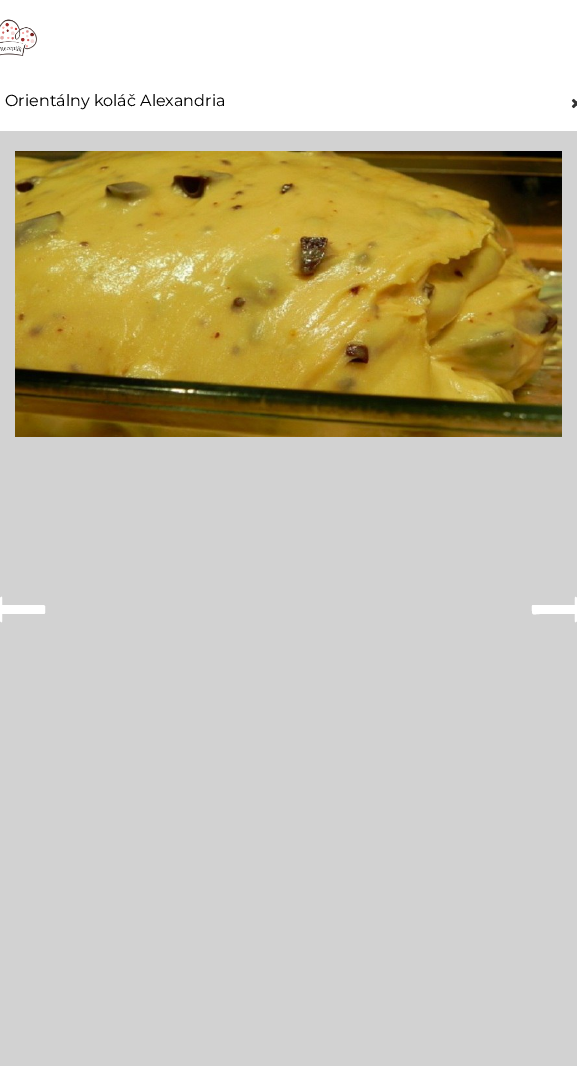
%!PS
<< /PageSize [577 1066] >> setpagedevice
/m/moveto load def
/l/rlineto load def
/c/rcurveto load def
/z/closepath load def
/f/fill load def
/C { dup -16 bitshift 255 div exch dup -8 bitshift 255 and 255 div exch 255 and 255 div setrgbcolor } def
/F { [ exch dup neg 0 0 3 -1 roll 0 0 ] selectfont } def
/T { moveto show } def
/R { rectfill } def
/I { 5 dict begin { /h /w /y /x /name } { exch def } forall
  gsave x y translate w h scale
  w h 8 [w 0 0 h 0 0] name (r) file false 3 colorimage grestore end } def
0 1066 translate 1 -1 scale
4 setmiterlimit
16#D2D2D2 C
0 0 577 1066 R
16#FFFFFF C
0 0 577 131 R
(1.rgb) 0 19 37 37 I
/Montserrat-Thin 16 F
16#000000 C
(Orientálny koláč Alexandria) 5 106 T
(2.rgb) 571 98 6 11 I
(3.rgb) 15 151 547 286 I
16#FFFFFF C
45 606 m 0 1 1 8 -1 8 c -42 0 l 0 1 1 10 -1 8 c -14 -12 l 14 -13 l 2 -2 1 7 1 8 c 42 0 l z f
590 609 m -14 13 l -2 2 -1 -7 -1 -8 c -35 0 l -6 0 -8 2 -8 -3 c 0 -1 -1 -6 1 -6 c 42 0 l 0 -1 -1 -9 1 -8 c z f
showpage
